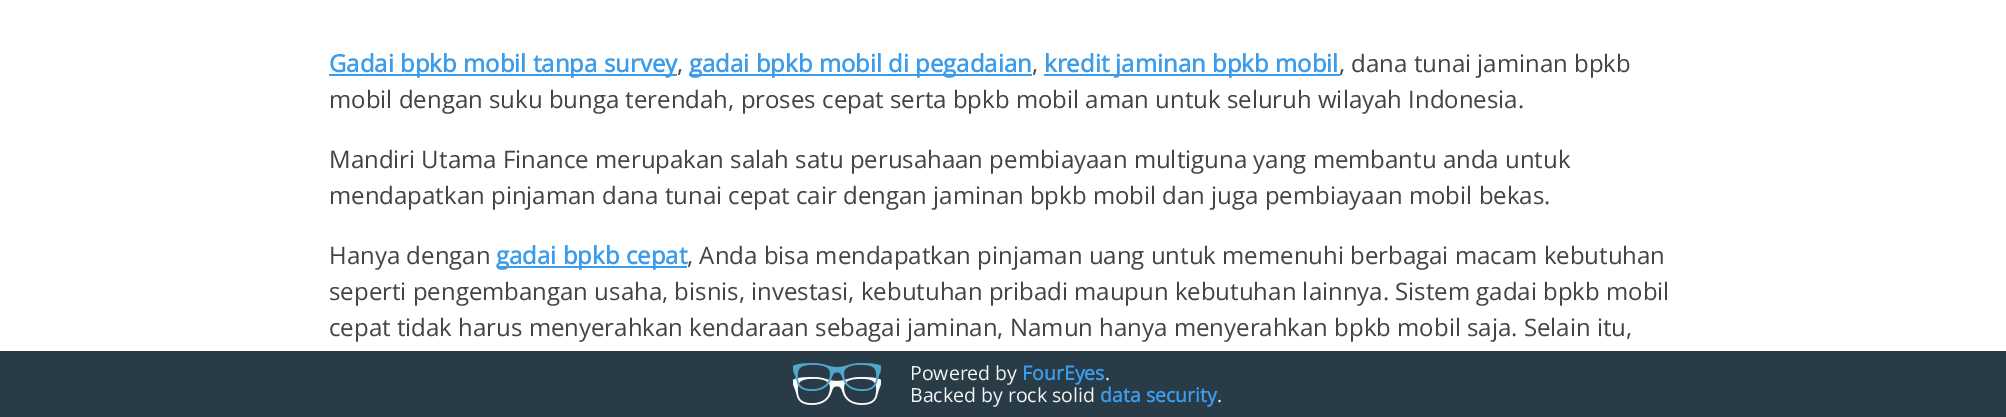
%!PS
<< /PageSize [2006 417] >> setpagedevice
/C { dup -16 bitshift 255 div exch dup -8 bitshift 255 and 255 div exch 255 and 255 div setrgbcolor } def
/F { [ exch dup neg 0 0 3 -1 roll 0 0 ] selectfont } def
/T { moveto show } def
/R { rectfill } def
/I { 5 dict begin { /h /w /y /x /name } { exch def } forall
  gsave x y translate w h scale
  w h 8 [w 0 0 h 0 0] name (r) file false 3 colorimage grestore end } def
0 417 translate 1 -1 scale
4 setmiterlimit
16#FFFFFF C
0 0 2006 417 R
16#3A9CEA C
329 74 348 2 R
/OpenSans-Bold 24 F
(Gadai bpkb mobil tanpa survey) 329 72 T
/OpenSans-Regular 24 F
16#444444 C
(,) 677 72 T
16#3A9CEA C
689 74 343 2 R
/OpenSans-Bold 24 F
(gadai bpkb mobil di pegadaian) 689 72 T
/OpenSans-Regular 24 F
16#444444 C
(,) 1032 72 T
16#3A9CEA C
1044 74 296 2 R
/OpenSans-Bold 24 F
(kredit jaminan bpkb mobil) 1044 72 T
/OpenSans-Regular 24 F
16#444444 C
(, dana tunai jaminan bpkb) 1339 72 T
(mobil dengan suku bunga terendah, proses cepat serta bpkb mobil aman untuk seluruh wilayah Indonesia.) 329 108 T
(Mandiri Utama Finance merupakan salah satu perusahaan pembiayaan multiguna yang membantu anda untuk) 329 168 T
(mendapatkan pinjaman dana tunai cepat cair dengan jaminan bpkb mobil dan juga pembiayaan mobil bekas.) 329 204 T
(Hanya dengan) 329 264 T
16#3A9CEA C
497 266 190 2 R
/OpenSans-Bold 24 F
(gadai bpkb cepat) 496 264 T
/OpenSans-Regular 24 F
16#444444 C
(, Anda bisa mendapatkan pinjaman uang untuk memenuhi berbagai macam kebutuhan) 687 264 T
(seperti pengembangan usaha, bisnis, investasi, kebutuhan pribadi maupun kebutuhan lainnya. Sistem gadai bpkb mobil) 329 300 T
(cepat tidak harus menyerahkan kendaraan sebagai jaminan, Namun hanya menyerahkan bpkb mobil saja. Selain itu,) 329 336 T
16#283B46 C
0 351 2006 66 R
(1.rgb) 792 363 89 42 I
/OpenSans-Regular 19.5 F
16#F6F6F6 C
(Powered by) 910 380 T
/OpenSans-Bold 19.5 F
16#3A9CEA C
(FourEyes) 1022 380 T
/OpenSans-Regular 19.5 F
16#F6F6F6 C
(.) 1105 380 T
(Backed by rock solid) 910 402 T
/OpenSans-Bold 19.5 F
16#3A9CEA C
(data security) 1100 402 T
/OpenSans-Regular 19.5 F
16#F6F6F6 C
(.) 1217 402 T
showpage
